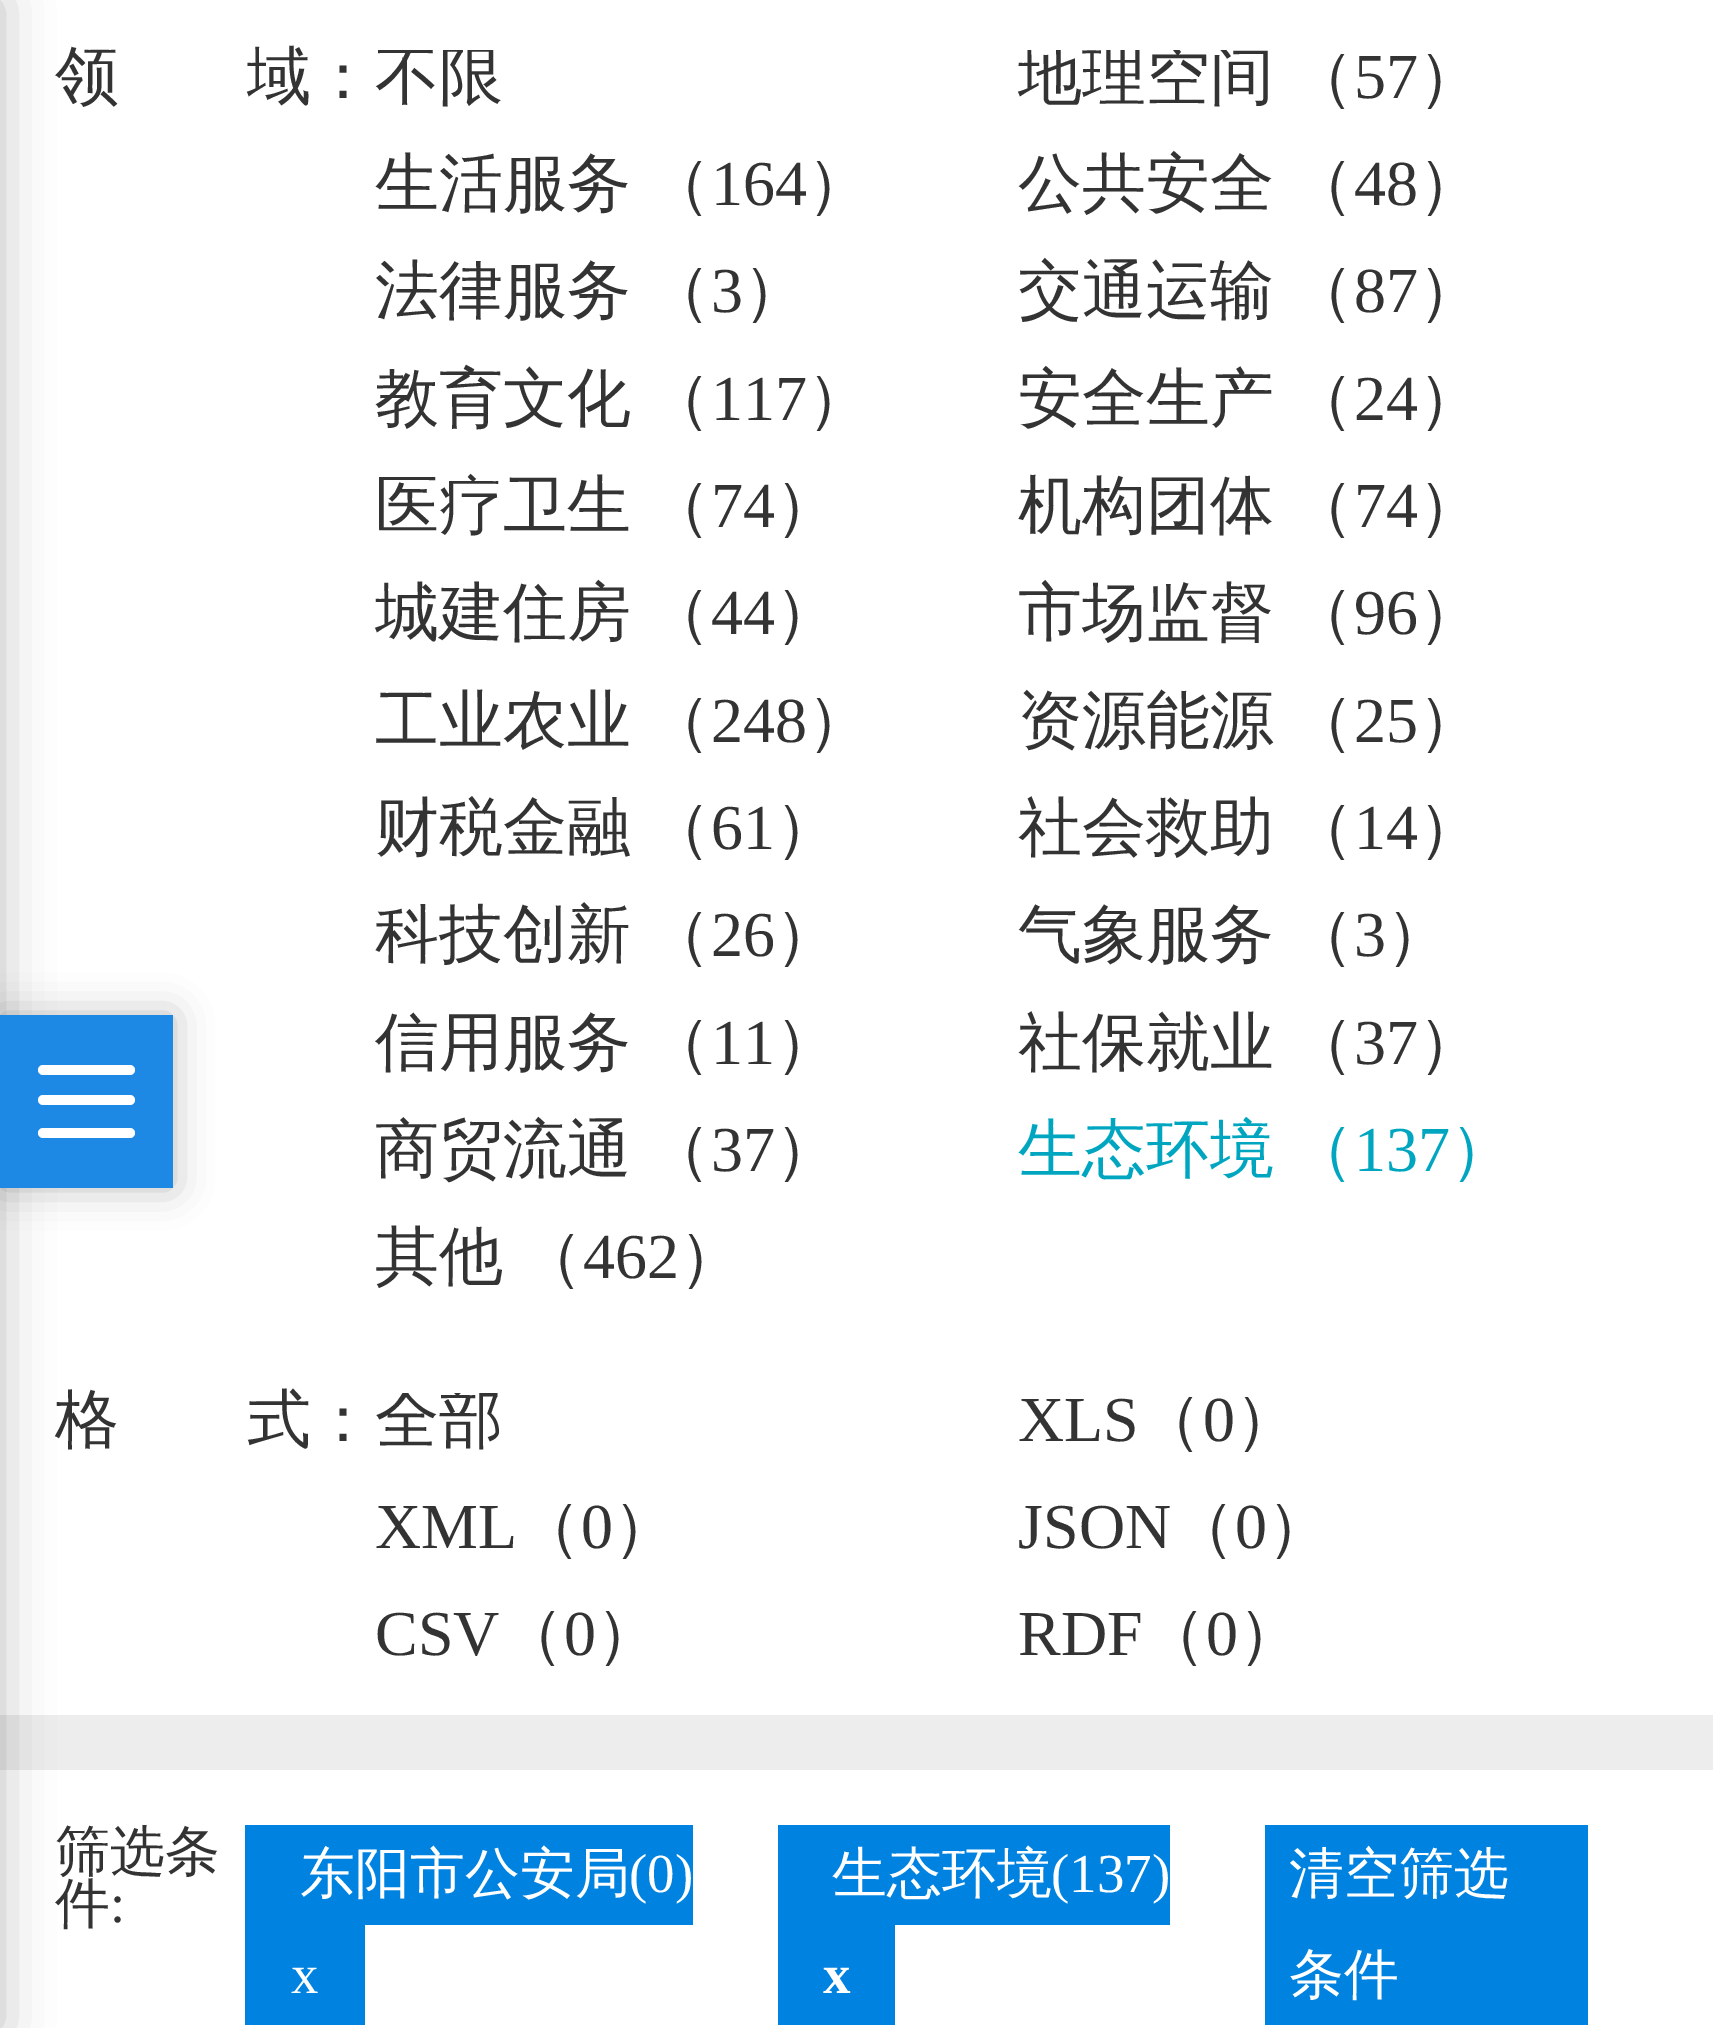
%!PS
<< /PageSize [1713 2028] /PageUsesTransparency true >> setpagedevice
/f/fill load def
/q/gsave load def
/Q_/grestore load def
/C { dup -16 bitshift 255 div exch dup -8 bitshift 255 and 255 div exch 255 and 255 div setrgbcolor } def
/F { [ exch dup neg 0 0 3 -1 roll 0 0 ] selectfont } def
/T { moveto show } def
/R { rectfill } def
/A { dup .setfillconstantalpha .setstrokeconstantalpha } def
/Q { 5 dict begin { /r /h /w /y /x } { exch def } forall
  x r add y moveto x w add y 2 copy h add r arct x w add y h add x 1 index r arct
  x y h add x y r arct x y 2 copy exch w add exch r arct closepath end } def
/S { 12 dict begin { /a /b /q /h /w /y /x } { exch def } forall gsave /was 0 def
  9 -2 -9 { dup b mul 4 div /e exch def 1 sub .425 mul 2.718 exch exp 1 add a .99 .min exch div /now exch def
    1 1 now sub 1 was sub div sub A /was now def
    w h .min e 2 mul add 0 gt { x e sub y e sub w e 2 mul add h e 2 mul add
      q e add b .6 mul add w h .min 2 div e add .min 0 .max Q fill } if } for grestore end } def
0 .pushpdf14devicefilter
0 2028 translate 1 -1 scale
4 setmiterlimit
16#EDEDED C
0 0 1713 2028 R
16#FFFFFF C
0 0 1713 1715 R
0 1770 1713 258 R
16#000000 C
-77 0 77 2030 0 25.5 .25 S
/WenQuanYiZenHei-Medium 64 F
16#333333 C
(领) 55 98 T
(域：) 247 98 T
q
375 50 1285 1288 rectclip
(不限) 375 98 T
(地理空间) 1018 98 T
Q_
(（) 1290 98 T
/LiberationSerif-Regular 64 F
(57) 1354 98 T
/WenQuanYiZenHei-Medium 64 F
(）) 1418 98 T
(生活服务) 375 205 T
(（) 647 205 T
/LiberationSerif-Regular 64 F
(164) 711 205 T
/WenQuanYiZenHei-Medium 64 F
(）) 807 205 T
(公共安全) 1018 205 T
(（) 1290 205 T
/LiberationSerif-Regular 64 F
(48) 1354 205 T
/WenQuanYiZenHei-Medium 64 F
(）) 1418 205 T
(法律服务) 375 312 T
(（) 647 312 T
/LiberationSerif-Regular 64 F
(3) 711 312 T
/WenQuanYiZenHei-Medium 64 F
(）) 743 312 T
(交通运输) 1018 312 T
(（) 1290 312 T
/LiberationSerif-Regular 64 F
(87) 1354 312 T
/WenQuanYiZenHei-Medium 64 F
(）) 1418 312 T
(教育文化) 375 420 T
(（) 647 420 T
/LiberationSerif-Regular 64 F
(117) 711 420 T
/WenQuanYiZenHei-Medium 64 F
(）) 807 420 T
(安全生产) 1018 420 T
(（) 1290 420 T
/LiberationSerif-Regular 64 F
(24) 1354 420 T
/WenQuanYiZenHei-Medium 64 F
(）) 1418 420 T
(医疗卫生) 375 527 T
(（) 647 527 T
/LiberationSerif-Regular 64 F
(74) 711 527 T
/WenQuanYiZenHei-Medium 64 F
(）) 775 527 T
(机构团体) 1018 527 T
(（) 1290 527 T
/LiberationSerif-Regular 64 F
(74) 1354 527 T
/WenQuanYiZenHei-Medium 64 F
(）) 1418 527 T
(城建住房) 375 634 T
(（) 647 634 T
/LiberationSerif-Regular 64 F
(44) 711 634 T
/WenQuanYiZenHei-Medium 64 F
(）) 775 634 T
(市场监督) 1018 634 T
(（) 1290 634 T
/LiberationSerif-Regular 64 F
(96) 1354 634 T
/WenQuanYiZenHei-Medium 64 F
(）) 1418 634 T
(工业农业) 375 742 T
(（) 647 742 T
/LiberationSerif-Regular 64 F
(248) 711 742 T
/WenQuanYiZenHei-Medium 64 F
(）) 807 742 T
(资源能源) 1018 742 T
(（) 1290 742 T
/LiberationSerif-Regular 64 F
(25) 1354 742 T
/WenQuanYiZenHei-Medium 64 F
(）) 1418 742 T
(财税金融) 375 849 T
(（) 647 849 T
/LiberationSerif-Regular 64 F
(61) 711 849 T
/WenQuanYiZenHei-Medium 64 F
(）) 775 849 T
(社会救助) 1018 849 T
(（) 1290 849 T
/LiberationSerif-Regular 64 F
(14) 1354 849 T
/WenQuanYiZenHei-Medium 64 F
(）) 1418 849 T
(科技创新) 375 956 T
(（) 647 956 T
/LiberationSerif-Regular 64 F
(26) 711 956 T
/WenQuanYiZenHei-Medium 64 F
(）) 775 956 T
(气象服务) 1018 956 T
(（) 1290 956 T
/LiberationSerif-Regular 64 F
(3) 1354 956 T
/WenQuanYiZenHei-Medium 64 F
(）) 1386 956 T
(信用服务) 375 1064 T
(（) 647 1064 T
/LiberationSerif-Regular 64 F
(11) 711 1064 T
/WenQuanYiZenHei-Medium 64 F
(）) 775 1064 T
(社保就业) 1018 1064 T
(（) 1290 1064 T
/LiberationSerif-Regular 64 F
(37) 1354 1064 T
/WenQuanYiZenHei-Medium 64 F
(）) 1418 1064 T
(商贸流通) 375 1171 T
(（) 647 1171 T
/LiberationSerif-Regular 64 F
(37) 711 1171 T
/WenQuanYiZenHei-Medium 64 F
(）) 775 1171 T
16#00A6C0 C
(生态环境) 1018 1171 T
(（) 1290 1171 T
/LiberationSerif-Regular 64 F
(137) 1354 1171 T
/WenQuanYiZenHei-Medium 64 F
(）) 1450 1171 T
16#333333 C
(其他) 375 1278 T
(（) 519 1278 T
/LiberationSerif-Regular 64 F
(462) 583 1278 T
/WenQuanYiZenHei-Medium 64 F
(）) 679 1278 T
(格) 55 1441 T
(式：) 247 1441 T
q
375 1393 1285 322 rectclip
(全部) 375 1441 T
Q_
/LiberationSerif-Regular 64 F
(XLS) 1018 1441 T
/WenQuanYiZenHei-Medium 64 F
(（) 1138 1441 T
/LiberationSerif-Regular 64 F
(0) 1203 1441 T
/WenQuanYiZenHei-Medium 64 F
(）) 1235 1441 T
/LiberationSerif-Regular 64 F
(XML) 375 1548 T
/WenQuanYiZenHei-Medium 64 F
(（) 517 1548 T
/LiberationSerif-Regular 64 F
(0) 581 1548 T
/WenQuanYiZenHei-Medium 64 F
(）) 613 1548 T
/LiberationSerif-Regular 64 F
(JSON) 1018 1548 T
/WenQuanYiZenHei-Medium 64 F
(（) 1171 1548 T
/LiberationSerif-Regular 64 F
(0) 1235 1548 T
/WenQuanYiZenHei-Medium 64 F
(）) 1267 1548 T
/LiberationSerif-Regular 64 F
(CSV) 375 1655 T
/WenQuanYiZenHei-Medium 64 F
(（) 500 1655 T
/LiberationSerif-Regular 64 F
(0) 564 1655 T
/WenQuanYiZenHei-Medium 64 F
(）) 596 1655 T
/LiberationSerif-Regular 64 F
(RDF) 1018 1655 T
/WenQuanYiZenHei-Medium 64 F
(（) 1142 1655 T
/LiberationSerif-Regular 64 F
(0) 1206 1655 T
/WenQuanYiZenHei-Medium 64 F
(）) 1238 1655 T
/WenQuanYiZenHei-Medium 55 F
(筛选条) 55 1870 T
(件) 55 1922 T
/LiberationSerif-Regular 55 F
(:) 110 1922 T
16#0082E0 C
245 1825 448 100 R
/WenQuanYiZenHei-Medium 55 F
16#FFFFFF C
(东阳市公安局) 300 1892 T
/LiberationSerif-Regular 55 F
(\(0\)) 629 1892 T
16#0082E0 C
245 1925 120 100 R
16#FFFFFF C
(x) 291 1993 T
16#0082E0 C
778 1825 392 100 R
/WenQuanYiZenHei-Medium 55 F
16#FFFFFF C
(生态环境) 832 1892 T
/LiberationSerif-Regular 55 F
(\(137\)) 1051 1892 T
16#0082E0 C
778 1925 117 100 R
/LiberationSerif-Bold 55 F
16#FFFFFF C
(x) 823 1993 T
16#0082E0 C
1265 1825 323 200 R
/WenQuanYiZenHei-Medium 55 F
16#FFFFFF C
(清空筛选) 1289 1892 T
(条件) 1289 1993 T
16#000000 C
0 1015 173 173 0 19 .25 S
16#1E88E5 C
0 1015 173 173 R
16#FFFFFF C
38 1065 97 10 5 Q f
38 1095 97 10 5 Q f
38 1128 97 10 5 Q f
.poppdf14devicefilter showpage
